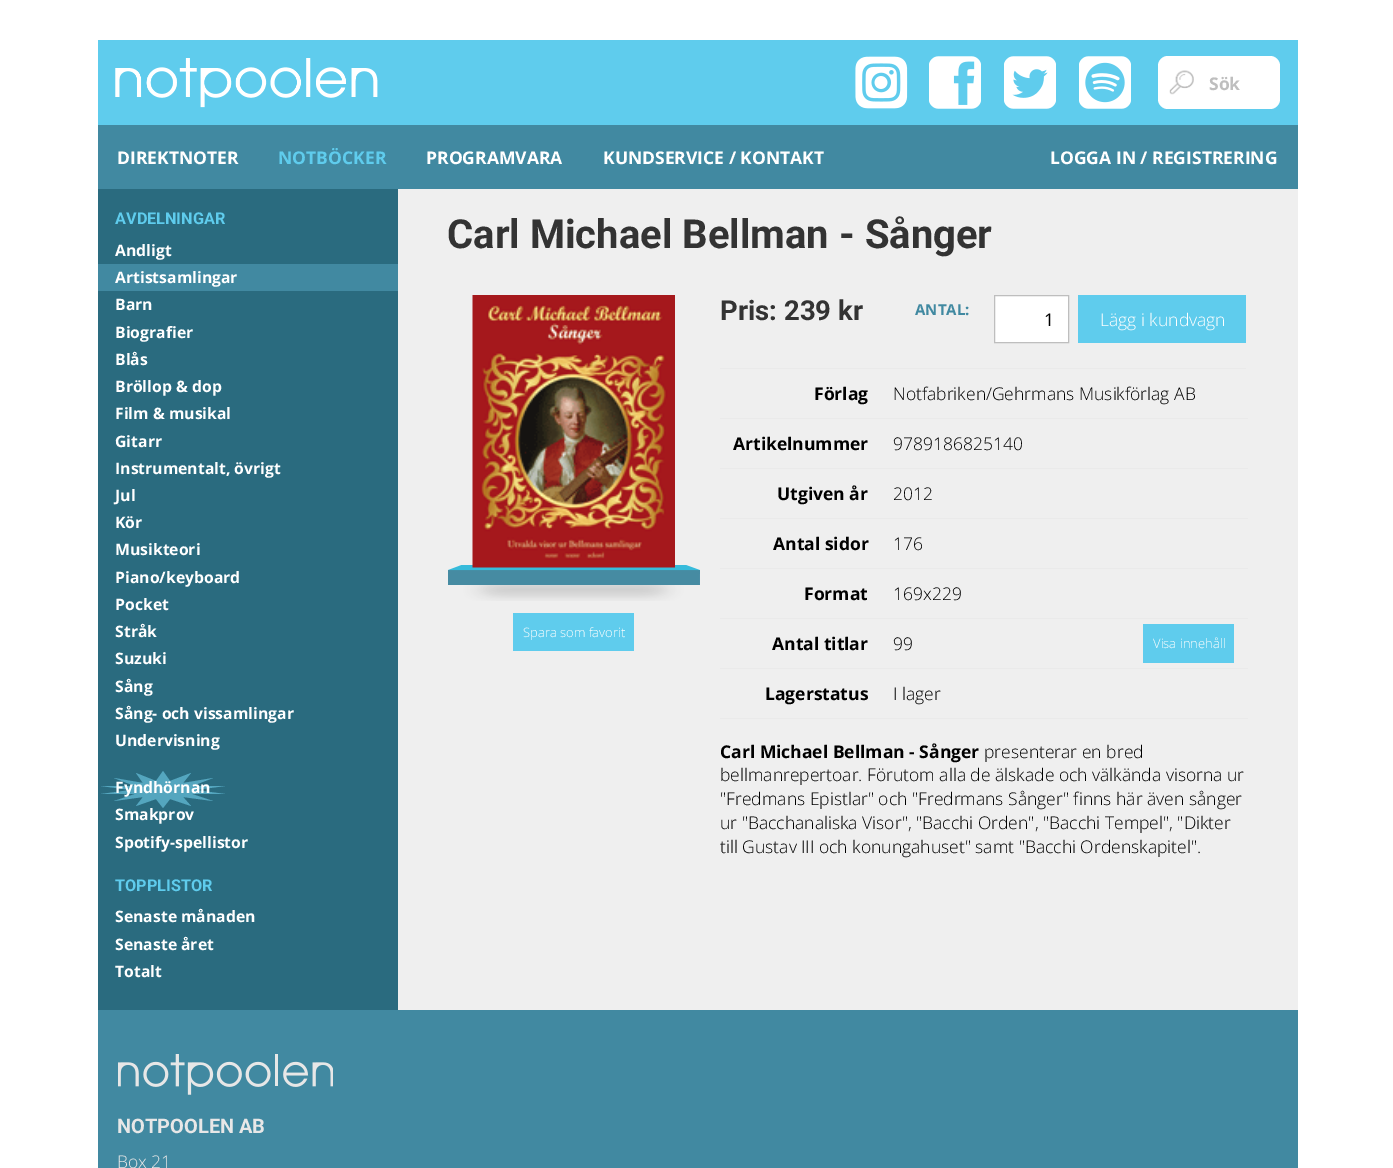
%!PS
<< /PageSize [1393 1168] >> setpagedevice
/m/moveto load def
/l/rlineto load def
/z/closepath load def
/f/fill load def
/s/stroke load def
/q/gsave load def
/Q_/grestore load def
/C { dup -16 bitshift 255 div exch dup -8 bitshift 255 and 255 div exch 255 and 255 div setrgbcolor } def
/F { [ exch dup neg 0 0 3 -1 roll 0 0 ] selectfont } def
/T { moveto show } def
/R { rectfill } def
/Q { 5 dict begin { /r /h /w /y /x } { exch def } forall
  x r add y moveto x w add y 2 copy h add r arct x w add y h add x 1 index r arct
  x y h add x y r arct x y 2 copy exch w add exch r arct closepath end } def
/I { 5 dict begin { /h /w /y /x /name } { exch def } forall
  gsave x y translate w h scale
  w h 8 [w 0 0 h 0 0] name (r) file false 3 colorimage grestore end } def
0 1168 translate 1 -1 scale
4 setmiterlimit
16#FFFFFF C
0 0 1393 1168 R
16#5FCCED C
98 40 1200 85 R
(1.rgb) 115 58 263 50 I
(2.rgb) 855 56 53 53 I
(3.rgb) 929 56 52 53 I
(4.rgb) 1004 56 52 53 I
(5.rgb) 1079 56 52 53 I
16#FFFFFF C
1158 56 122 53 10 Q f
(6.rgb) 1169 70 25 25 I
/OpenSans-Bold 17.5 F
16#BEBEBE C
(Sök) 1209 90 T
16#4189A1 C
98 125 1200 64 R
16#FFFFFF C
(DIREKTNOTER) 117 164 T
16#5FCCED C
(NOTBÖCKER) 278 164 T
16#FFFFFF C
(PROGRAMVARA) 426 164 T
(KUNDSERVICE / KONTAKT) 603 164 T
(LOGGA IN / REGISTRERING) 1050 164 T
16#EFEFEF C
398 189 900 821 R
16#2A6B7F C
98 189 300 821 R
/Roboto-Bold 16.25 F
16#5FCCED C
(AVDELNINGAR) 115 224 T
/OpenSans-Bold 15.75 F
16#FFFFFF C
(Andligt) 115 256 T
16#4189A1 C
98 264 300 27 R
16#FFFFFF C
(Artistsamlingar) 115 283 T
(Barn) 115 310 T
(Biografier) 115 338 T
(Blås) 115 365 T
(Bröllop & dop) 115 392 T
(Film & musikal) 115 419 T
(Gitarr) 115 447 T
(Instrumentalt, övrigt) 115 474 T
(Jul) 115 501 T
(Kör) 115 528 T
(Musikteori) 115 555 T
(Piano/keyboard) 115 583 T
(Pocket) 115 610 T
(Stråk) 115 637 T
(Suzuki) 115 664 T
(Sång) 115 692 T
(Sång- och vissamlingar) 115 719 T
(Undervisning) 115 746 T
16#54A6BF C
163 771 m 7 10 l 21 -8 l -8 10 l 30 -5 l -21 8 l 33 0 l -30 4 l 30 4 l -33 0 l 21 7 l -30 -4 l 8 9 l -21 -7 l -7 9 l -7 -9 l -20 7 l 7 -9 l -29 4 l 21 -7 l -34 0 l 30 -4 l -30 -4 l 34 0 l -21 -8 l 29 5 l -7 -10 l 20 8 l z f
16#FFFFFF C
(Fyndhörnan) 115 793 T
(Smakprov) 115 820 T
(Spotify-spellistor) 115 848 T
/Roboto-Bold 16.25 F
16#5FCCED C
(TOPPLISTOR) 115 891 T
/OpenSans-Bold 15.75 F
16#FFFFFF C
(Senaste månaden) 115 922 T
(Senaste året) 115 950 T
(Totalt) 115 977 T
/Roboto-Bold 40 F
16#333333 C
(Carl Michael Bellman - Sånger) 447 248 T
(8.rgb) 448 565 252 36 I
(7.rgb) 472 295 203 273 I
16#5FCCED C
513 613 121 38 R
/OpenSans-Light 13 F
16#FFFFFF C
(Spara som favorit) 523 637 T
/Roboto-Bold 27.5 F
16#333333 C
(Pris: 239 kr) 720 320 T
/OpenSans-Bold 15 F
16#4189A1 C
(ANTAL:) 915 315 T
16#FFFFFF C
994.5 295.5 m 74 0 l 0 47 l -74 0 l z q f Q_
16#BEBEBE C
s
/OpenSans-Regular 17.5 F
16#000000 C
(1) 1044 326 T
16#5FCCED C
1078 295 168 48 R
/OpenSans-Light 17.5 F
16#FFFFFF C
(Lägg i kundvagn) 1100 326 T
16#EAEAEA C
720 368 526 1 R
/OpenSans-Bold 17.5 F
16#000000 C
(Förlag) 814 400 T
16#EAEAEA C
720 418 528 1 R
/OpenSans-Light 17.5 F
16#000000 C
(Notfabriken/Gehrmans Musikförlag AB) 893 400 T
/OpenSans-Bold 17.5 F
(Artikelnummer) 733 450 T
16#EAEAEA C
720 468 528 1 R
/OpenSans-Light 17.5 F
16#000000 C
(9789186825140) 893 450 T
/OpenSans-Bold 17.5 F
(Utgiven år) 777 500 T
16#EAEAEA C
720 518 528 1 R
/OpenSans-Light 17.5 F
16#000000 C
(2012) 893 500 T
/OpenSans-Bold 17.5 F
(Antal sidor) 773 550 T
16#EAEAEA C
720 568 528 1 R
/OpenSans-Light 17.5 F
16#000000 C
(176) 893 550 T
/OpenSans-Bold 17.5 F
(Format) 804 600 T
16#EAEAEA C
720 618 528 1 R
/OpenSans-Light 17.5 F
16#000000 C
(169x229) 893 600 T
/OpenSans-Bold 17.5 F
(Antal titlar) 772 650 T
16#EAEAEA C
720 668 528 1 R
/OpenSans-Light 17.5 F
16#000000 C
(99) 893 650 T
16#5FCCED C
1143 624 91 39 R
/OpenSans-Light 13 F
16#FFFFFF C
(Visa innehåll) 1153 648 T
/OpenSans-Bold 17.5 F
16#000000 C
(Lagerstatus) 765 700 T
16#EAEAEA C
720 718 528 1 R
/OpenSans-Light 17.5 F
16#000000 C
(I lager) 893 700 T
/OpenSans-Bold 17.5 F
(Carl Michael Bellman - Sånger) 720 758 T
/OpenSans-Light 17.5 F
(presenterar en bred) 984 758 T
(bellmanrepertoar. Förutom alla de älskade och välkända visorna ur) 720 781 T
("Fredmans Epistlar" och "Fredrmans Sånger" finns här även sånger) 720 805 T
(ur "Bacchanaliska Visor", "Bacchi Orden", "Bacchi Tempel", "Dikter) 720 829 T
(till Gustav III och konungahuset" samt "Bacchi Ordenskapitel".) 720 853 T
16#4189A1 C
98 1010 1200 158 R
(9.rgb) 118 1054 215 41 I
/Roboto-Bold 20 F
16#E7E7E7 C
(NOTPOOLEN AB) 117 1133 T
/OpenSans-Light 17.5 F
(Box 21) 117 1168 T
showpage
